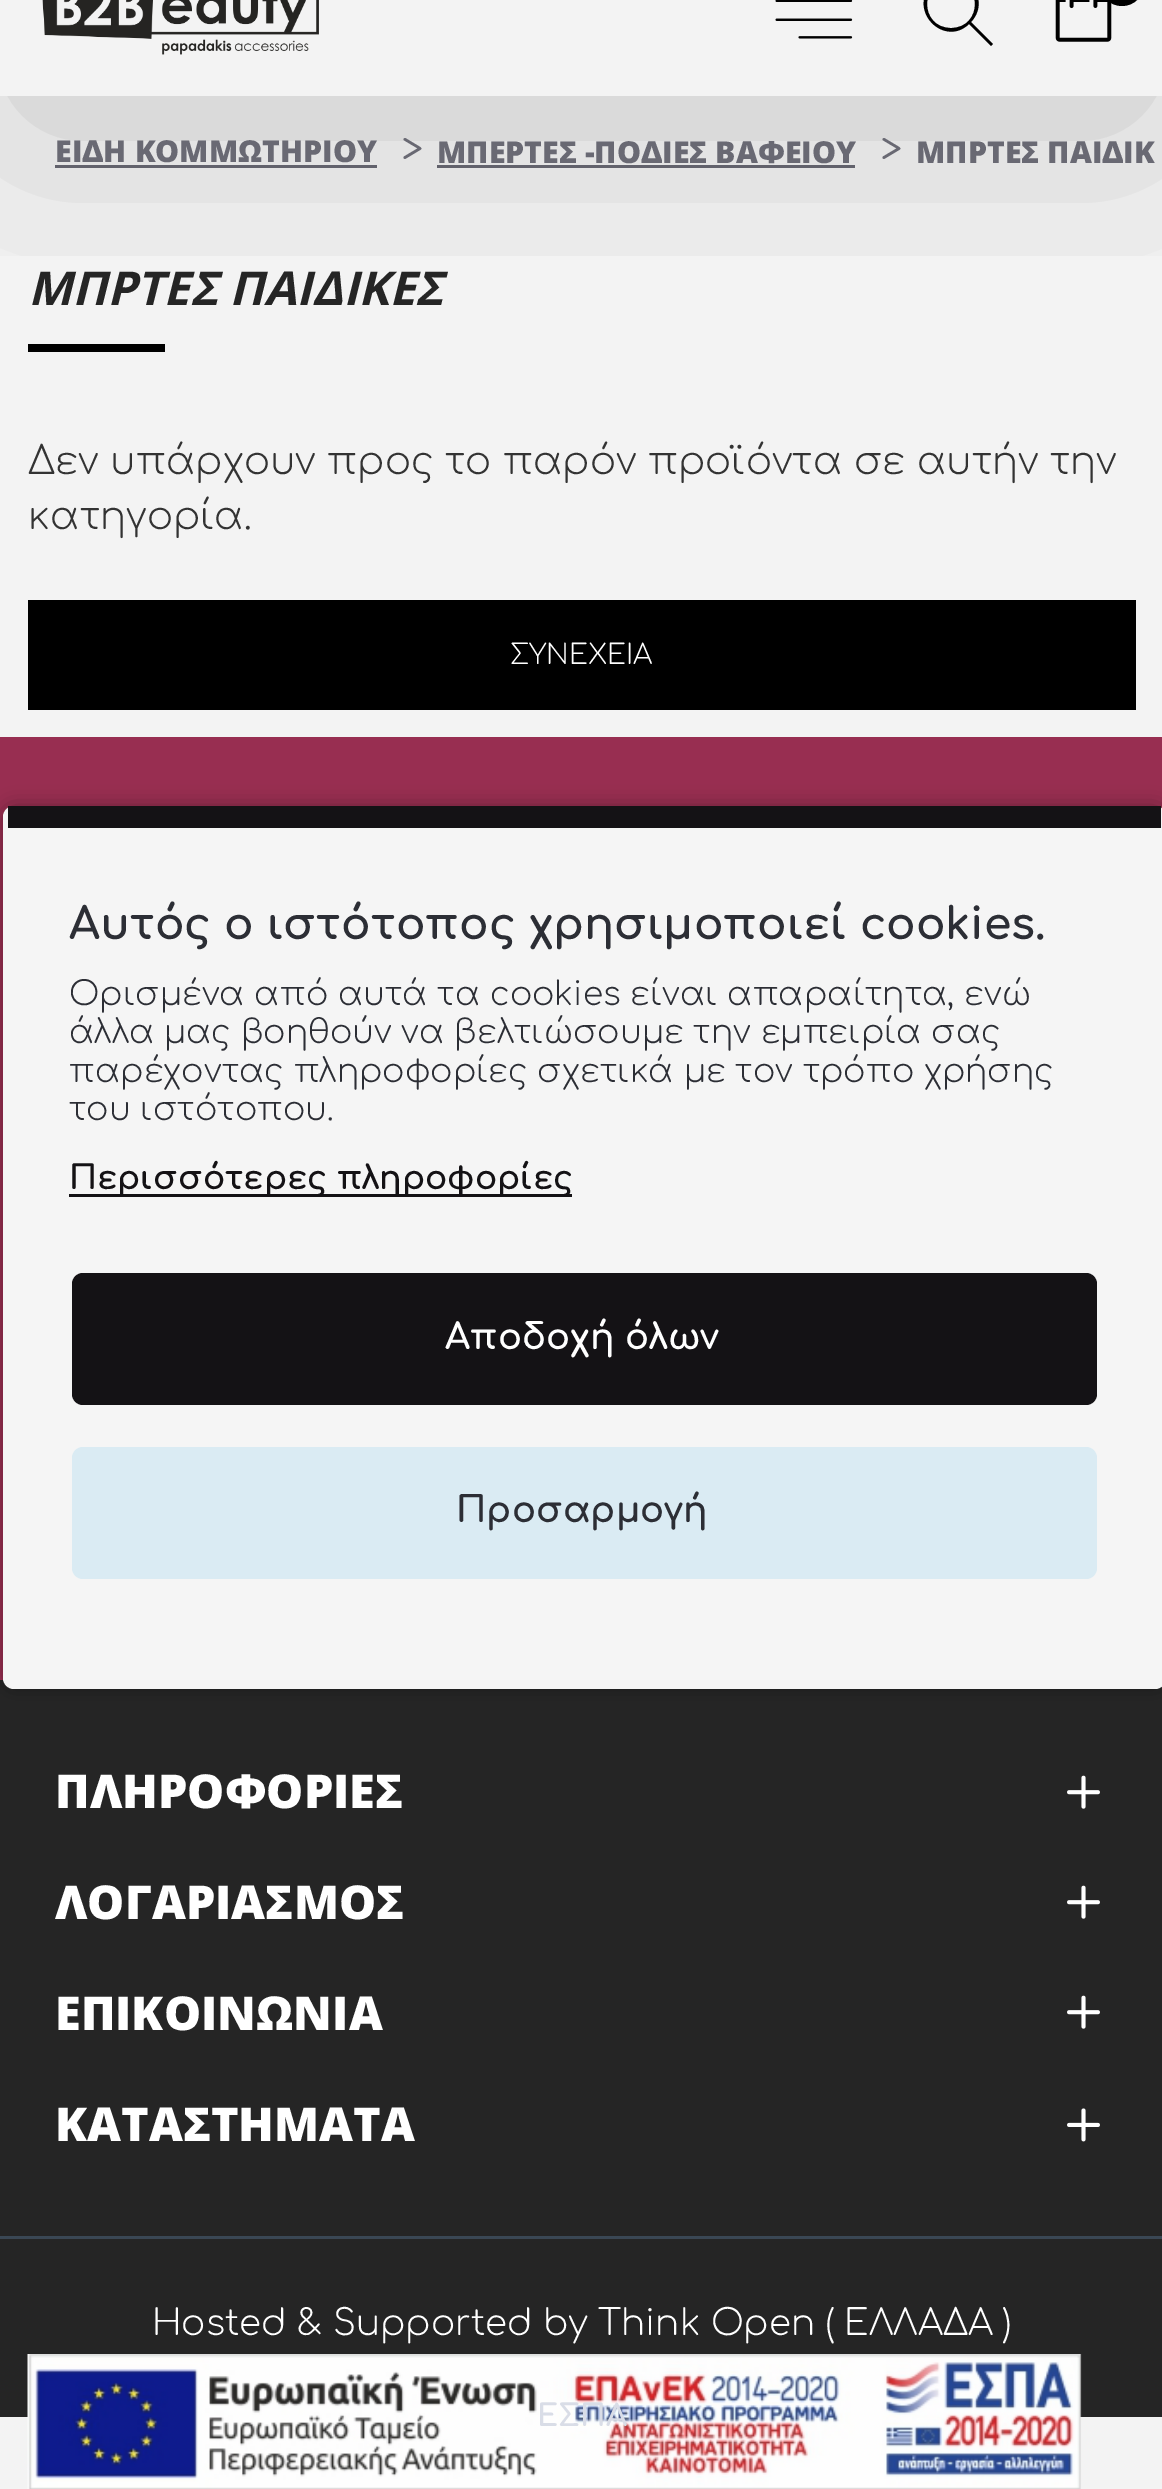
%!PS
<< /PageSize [1162 2489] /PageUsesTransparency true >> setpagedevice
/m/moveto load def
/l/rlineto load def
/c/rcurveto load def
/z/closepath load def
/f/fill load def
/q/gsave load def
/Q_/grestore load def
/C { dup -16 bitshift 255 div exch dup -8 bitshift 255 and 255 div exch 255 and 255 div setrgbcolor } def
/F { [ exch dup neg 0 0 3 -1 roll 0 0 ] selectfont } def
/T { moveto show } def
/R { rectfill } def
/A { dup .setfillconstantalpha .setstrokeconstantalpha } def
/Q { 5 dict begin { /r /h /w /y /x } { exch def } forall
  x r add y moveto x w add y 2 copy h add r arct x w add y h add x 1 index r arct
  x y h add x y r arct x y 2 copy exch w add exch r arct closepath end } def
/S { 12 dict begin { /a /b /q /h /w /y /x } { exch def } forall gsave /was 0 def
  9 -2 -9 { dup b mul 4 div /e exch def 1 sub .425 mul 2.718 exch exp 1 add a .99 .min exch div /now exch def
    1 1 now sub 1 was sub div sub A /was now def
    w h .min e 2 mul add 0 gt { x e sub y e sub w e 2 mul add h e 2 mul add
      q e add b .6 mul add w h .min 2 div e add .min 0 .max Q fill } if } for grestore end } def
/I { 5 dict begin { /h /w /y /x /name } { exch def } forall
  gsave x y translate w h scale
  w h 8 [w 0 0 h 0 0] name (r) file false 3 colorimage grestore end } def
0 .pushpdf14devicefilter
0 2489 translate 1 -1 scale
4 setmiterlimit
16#F3F3F3 C
0 0 1162 2489 R
16#696973 C
55 165 322 3 R
437 165 418 3 R
16#000000 C
28 344 137 8 R
q
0 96 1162 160 rectclip
28 0 1108 110 0 124 .2 S
Q_
(1.rgb) 42 0 277 55 I
(2.rgb) 775 0 78 39 I
969 24 m 22 22 l 2 -2 l -22 -22 l 24 -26 -14 -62 -39 -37 c -25 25 12 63 37 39 c z 951 -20 m 32 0 32 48 0 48 c -32 0 -32 -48 0 -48 c z f
(3.rgb) 1055 0 57 42 I
1100 -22 44 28 22 Q f
/OpenSans-ExtraBold 30.25 F
16#696973 C
(ΕΙΔΗ ΚΟΜΜΩΤΗΡΙΟΥ) 55 162 T
/Comfortaa-Regular 38.5 F
(>) 402 162 T
/OpenSans-ExtraBold 30.25 F
(ΜΠΕΡΤΕΣ -ΠΟΔΙΕΣ ΒΑΦΕΙΟΥ) 437 163 T
/Comfortaa-Regular 38.5 F
(>) 881 162 T
/OpenSans-ExtraBold 30.25 F
(ΜΠΡΤΕΣ ΠΑΙΔΙΚ) 916 163 T
/OpenSans-BoldItalic 46.75 F
16#252525 C
(ΜΠΡΤΕΣ ΠΑΙΔΙΚΕΣ) 28 305 T
/Comfortaa-Light 38.5 F
16#333333 C
(Δεν υπάρχουν προς το παρόν προϊόντα σε αυτήν την) 28 474 T
(κατηγορία.) 28 529 T
16#000000 C
28 600 1108 110 R
/Comfortaa-Light 27.5 F
16#FFFFFF C
(ΣΥΝΕΧΕΙΑ) 510 664 T
16#252525 C
0 1680 1162 737 R
16#982E51 C
0 737 1162 943 R
/OpenSans-ExtraBold 46.75 F
16#FFFFFF C
(ΠΛΗΡΟΦΟΡΙΕΣ) 55 1808 T
(4.rgb) 1067 1775 33 34 I
(ΛΟΓΑΡΙΑΣΜΟΣ) 55 1919 T
(4.rgb) 1067 1885 33 34 I
(ΕΠΙΚΟΙΝΩΝΙΑ) 55 2030 T
(4.rgb) 1067 1995 33 34 I
(ΚΑΤΑΣΤΗΜΑΤΑ) 55 2141 T
(5.rgb) 1067 2108 33 34 I
16#3A4754 C
0 2236 1162 3 R
/Comfortaa-Light 35.75 F
16#FFFFFF C
(Hosted & Supported by Think Open \( ΕΛΛΑΔΑ \)) 152 2335 T
q
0 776 m 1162 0 l 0 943 l -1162 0 l z 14 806 m 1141 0 l 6 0 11 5 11 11 c 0 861 l 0 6 -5 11 -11 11 c -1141 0 l -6 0 -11 -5 -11 -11 c 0 -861 l 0 -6 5 -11 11 -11 c z eoclip newpath
16#000000 C
3 806 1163 883 11 9.5 .3 S
Q_
16#F5F5F5 C
3 806 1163 883 11 Q f
16#141215 C
8 806 1153 22 R
/Comfortaa-Bold 44 F
16#2C2E35 C
(Αυτός ο ιστότοπος χρησιμοποιεί cookies.) 69 939 T
/Comfortaa-Light 33 F
(Ορισμένα από αυτά τα cookies είναι απαραίτητα, ενώ) 69 1005 T
(άλλα μας βοηθούν να βελτιώσουμε την εμπειρία σας) 69 1043 T
(παρέχοντας πληροφορίες σχετικά με τον τρόπο χρήσης) 69 1082 T
(του ιστότοπου.) 69 1120 T
16#141215 C
69 1194 503 3 R
/Comfortaa-Bold 33 F
(Περισσότερες πληροφορίες) 69 1189 T
72 1273 1025 132 11 Q f
/Comfortaa-Bold 35.75 F
16#FFFFFF C
(Αποδοχή όλων) 445 1349 T
16#DAEBF3 C
72 1447 1025 132 11 Q f
16#2C2E35 C
(Προσαρμογή) 456 1522 T
(6.rgb) 27 2354 1055 135 I
/Comfortaa-Bold 30.25 F
16#D9DDE7 C
(ΕΣΠΑ) 537 2426 T
.poppdf14devicefilter showpage
